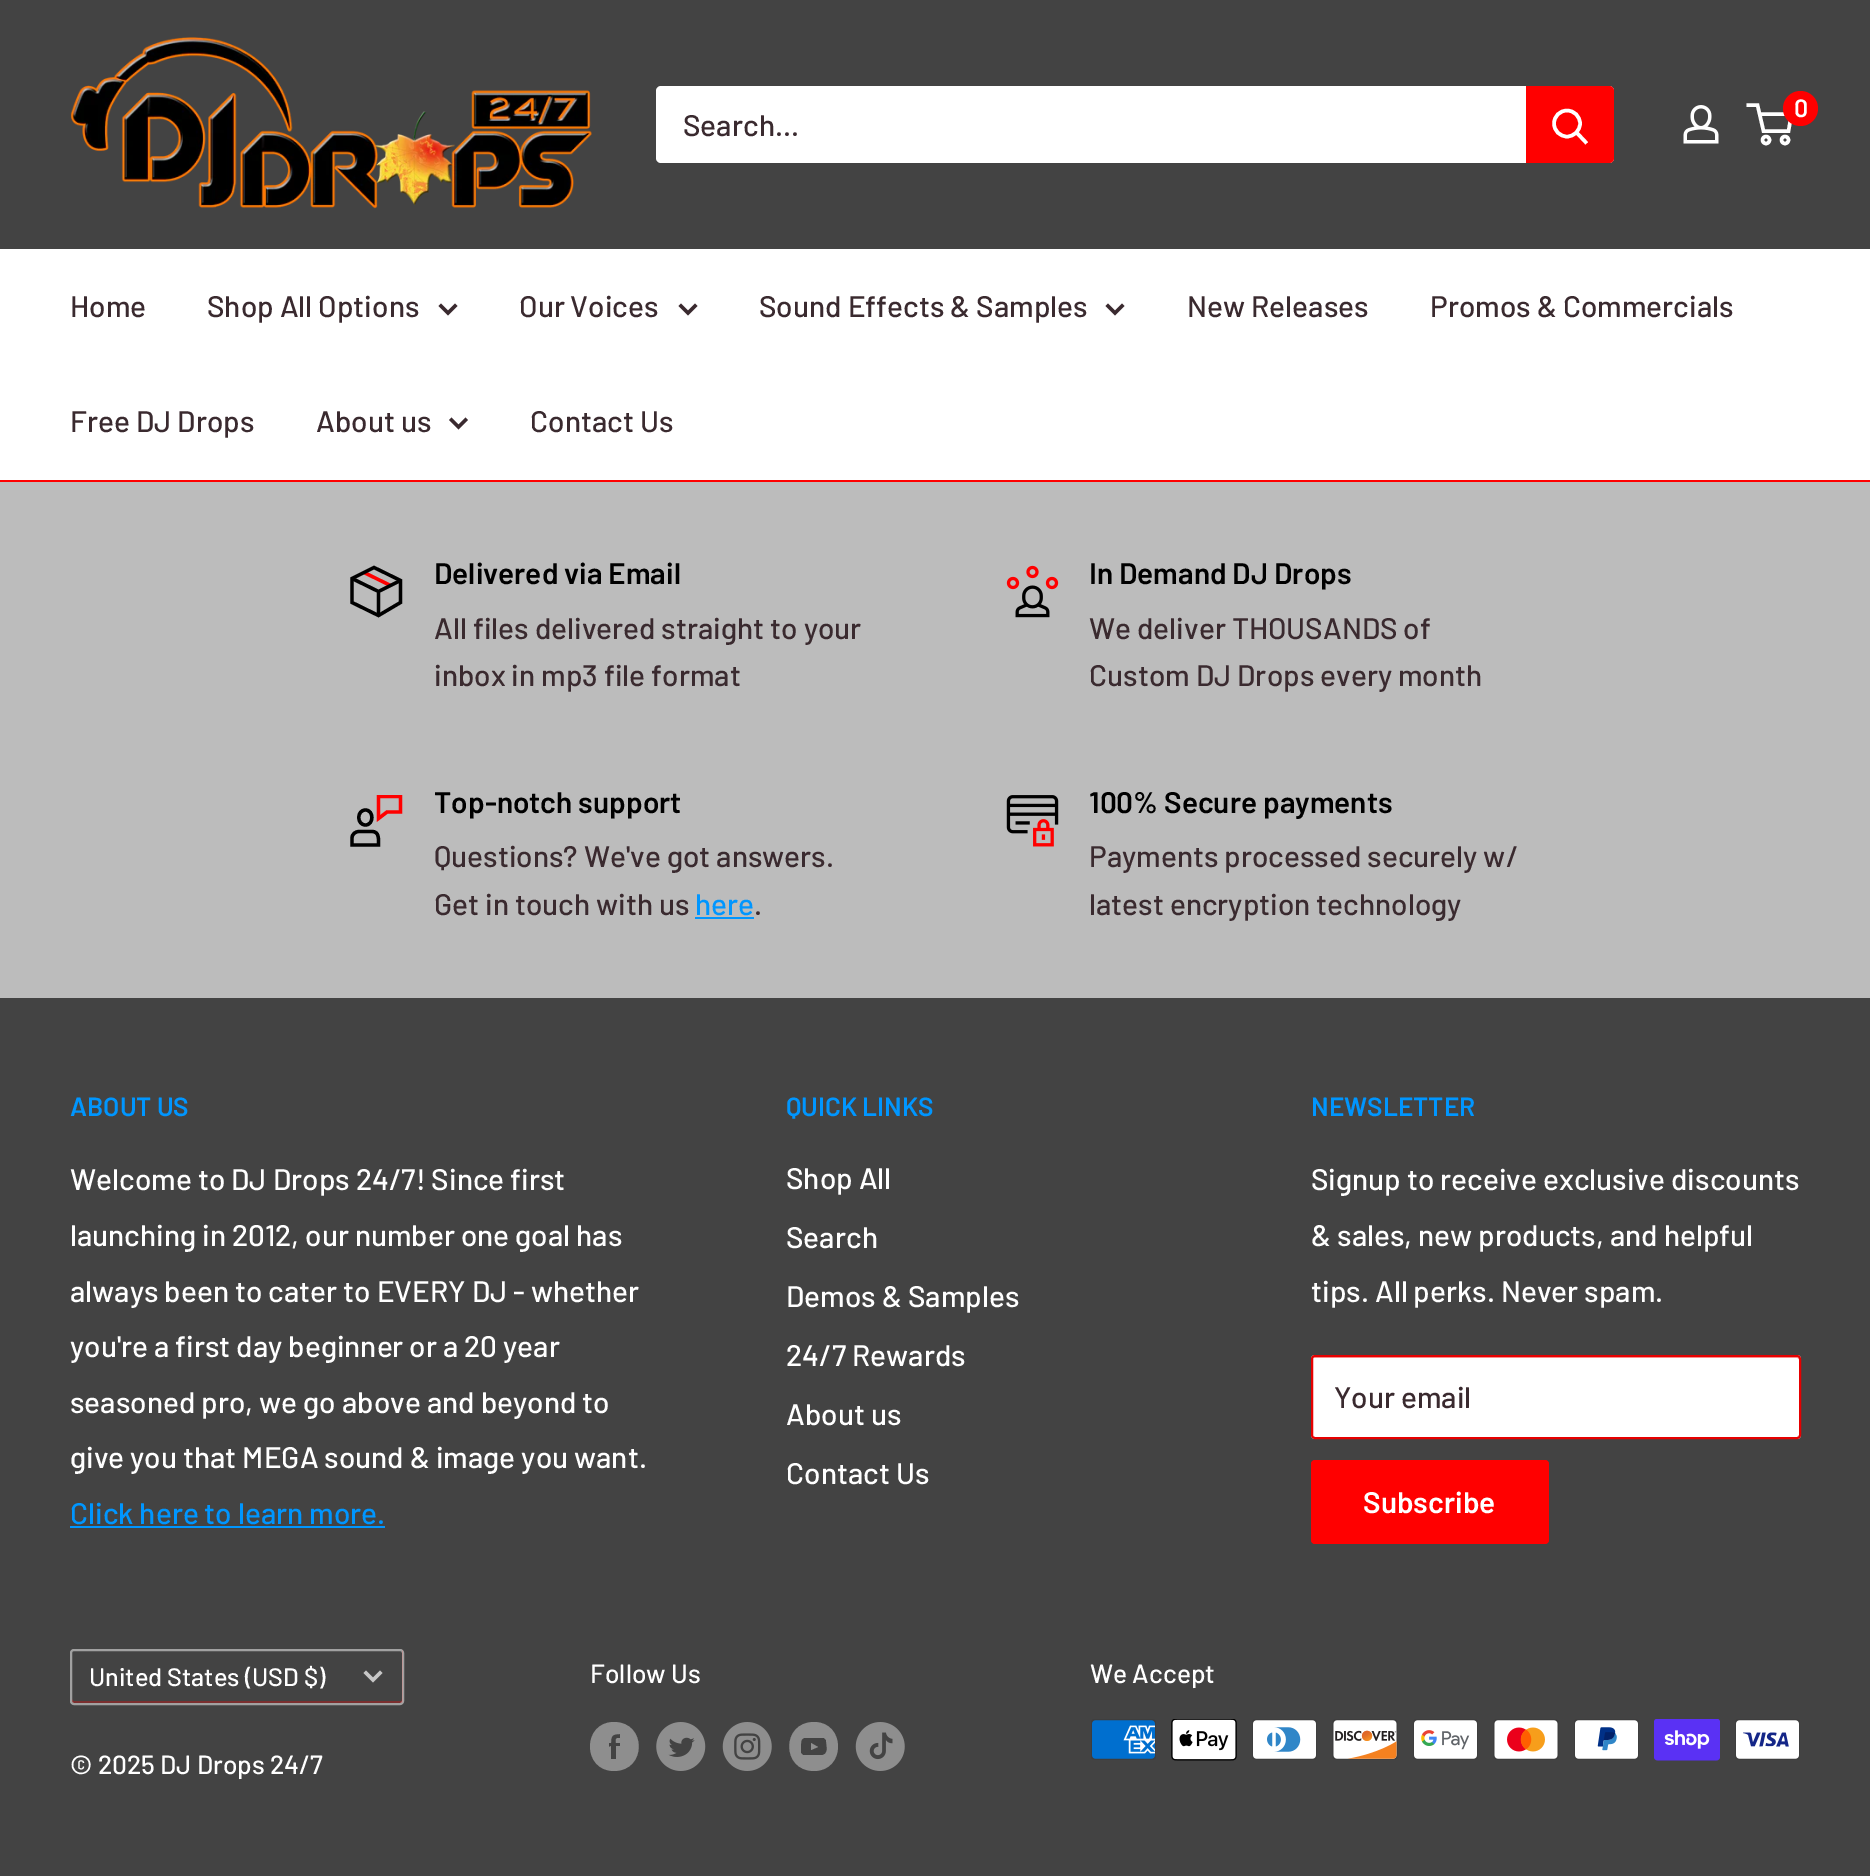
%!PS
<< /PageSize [1870 1876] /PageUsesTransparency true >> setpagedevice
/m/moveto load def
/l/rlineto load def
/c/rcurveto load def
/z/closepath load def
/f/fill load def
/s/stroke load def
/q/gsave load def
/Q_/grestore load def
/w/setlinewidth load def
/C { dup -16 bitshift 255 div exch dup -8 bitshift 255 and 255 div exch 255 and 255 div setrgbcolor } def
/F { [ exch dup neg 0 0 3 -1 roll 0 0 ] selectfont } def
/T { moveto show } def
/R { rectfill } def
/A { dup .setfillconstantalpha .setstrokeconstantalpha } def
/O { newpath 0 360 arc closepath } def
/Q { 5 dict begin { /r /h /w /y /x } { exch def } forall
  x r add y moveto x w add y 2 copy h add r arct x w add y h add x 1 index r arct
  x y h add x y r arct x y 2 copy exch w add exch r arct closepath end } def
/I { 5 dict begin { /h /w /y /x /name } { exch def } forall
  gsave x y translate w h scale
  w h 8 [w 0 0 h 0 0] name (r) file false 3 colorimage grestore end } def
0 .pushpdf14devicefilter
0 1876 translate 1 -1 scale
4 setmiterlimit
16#BCBCBC C
0 0 1870 1876 R
16#434343 C
0 0 1870 249 R
(1.rgb) 70 37 522 172 I
(2.rgb) 1683 105 36 39 I
16#FFFFFF C
3.5 w
1766 140 3.5 O s
1785 140 3.5 O s
1759.5 114 m 32 0 l -3 17 l -25 0 l -6 -26 l -11 0 l s
16#FF0000 C
1800.5 108.5 17.5 O f
/Barlow-SemiBold 25 F
16#FFFFFF C
(0) 1794 117 T
656 86 958 77 5 Q f
/Barlow-Medium 29.75 F
16#3A2A2F C
(Search...) 683 136 T
16#FF0000 C
1526 86 m 83 0 l 3 0 5 2 5 5 c 0 67 l 0 3 -2 5 -5 5 c -83 0 l z f
16#FFFFFF C
2 setlinecap
1585.5 142 m -8.5 -9 l s
0 setlinecap
1567 123.5 13 O s
0 249 1870 231 R
16#FF0000 C
0 480 1870 2 R
16#3A2A2F C
(Home) 70 317 T
(Shop All Options) 207 317 T
2 setlinecap
455 306 m -7 7 l -7 -7 l s
(Our Voices) 519 317 T
695 306 m -7 7 l -7 -7 l s
(Sound Effects & Samples) 759 317 T
1122 306 m -7 7 l -7 -7 l s
(New Releases) 1187 317 T
(Promos & Commercials) 1430 317 T
(Free DJ Drops) 70 432 T
(About us) 316 432 T
465.5 420 m -7 7 l -7 -7 l s
(Contact Us) 530 432 T
16#FF0000 C
3.3 w
0 setlinecap
364 572.5 m 26.5 13 l s
16#000000 C
400.5 580.5 m -22 11 l -26.5 -13 l 378.5 591.5 m 0 24 l s
2 setlinecap
400.5 580.5 m 0 22 l -22 13 l -26.5 -13 l 0 -24 l 22 -11 l z s
/Barlow-SemiBold 29.75 F
(Delivered via Email) 434 584 T
/Barlow-Medium 29.75 F
16#3A2A2F C
(All files delivered straight to your) 434 639 T
(inbox in mp3 file format) 434 686 T
(3.rgb) 1006 565 53 53 I
/Barlow-SemiBold 29.75 F
16#000000 C
(In Demand DJ Drops) 1089 584 T
/Barlow-Medium 29.75 F
16#3A2A2F C
(We deliver THOUSANDS of) 1089 639 T
(Custom DJ Drops every month) 1089 686 T
16#000000 C
372 831.5 m -13 0 l -4 0 -7 3 -7 6.5 c 0 7 l 26.5 0 l 0 -5.5 1 -13.5 -6.5 -13.5 c z 365.5 825 m -9 0 -9 -15 0 -15 c 8.5 0 8.5 15 0 15 c z s
q
350 795 53 52 rectclip
16#FF0000 C
378.5 796.5 m 0 22 l 8.5 -6.5 l 13.5 0 l 0 -15.5 l z s
Q_
/Barlow-SemiBold 29.75 F
(Top-notch support) 434 813 T
/Barlow-Medium 29.75 F
16#3A2A2F C
(Questions? We've got answers.) 434 867 T
(Get in touch with us) 434 915 T
16#0096FF C
(here) 695 915 T
695 917 59 2 R
16#3A2A2F C
(.) 754 915 T
(4.rgb) 1006 795 53 52 I
/Barlow-SemiBold 29.75 F
16#000000 C
(100% Secure payments) 1089 813 T
/Barlow-Medium 29.75 F
16#3A2A2F C
(Payments processed securely w/) 1089 867 T
(latest encryption technology) 1089 915 T
16#434343 C
0 998 1870 878 R
/Barlow-SemiBold 26.25 F
16#0096FF C
(ABOUT US) 70 1116 T
/Barlow-Medium 29.75 F
16#FFFFFF C
(Welcome to DJ Drops 24/7! Since first) 70 1190 T
(launching in 2012, our number one goal has) 70 1246 T
(always been to cater to EVERY DJ - whether) 70 1302 T
(you're a first day beginner or a 20 year) 70 1357 T
(seasoned pro, we go above and beyond to) 70 1413 T
(give you that MEGA sound & image you want.) 70 1468 T
16#0096FF C
(Click here to learn more.) 70 1524 T
70 1526 315 2 R
/Barlow-SemiBold 26.25 F
(QUICK LINKS) 786 1116 T
/Barlow-Medium 29.75 F
16#FFFFFF C
(Shop All) 786 1189 T
(Search) 786 1248 T
(Demos & Samples) 786 1307 T
(24/7 Rewards) 786 1366 T
(About us) 786 1425 T
(Contact Us) 786 1484 T
/Barlow-SemiBold 26.25 F
16#0096FF C
(NEWSLETTER) 1311 1116 T
/Barlow-Medium 29.75 F
16#FFFFFF C
(Signup to receive exclusive discounts) 1311 1190 T
(& sales, new products, and helpful) 1311 1246 T
(tips. All perks. Never spam.) 1311 1302 T
1311 1355 490 84 4 Q f
16#FFBFBF C
1314 1358 m 483 0 l 1 0 2 1 2 2 c 0 -2 l 0 -1 -1 -2 -2 -2 c -482 0 l -1 0 -2 1 -2 2 c z f
16#E60000 C
2 w
0 setlinecap
1312 1356 488 82 3 Q s
16#3A2A2F C
(Your email) 1334 1408 T
16#FF0000 C
1311 1460 238 84 4 Q f
/Barlow-SemiBold 29.75 F
16#FFFFFF C
(Subscribe) 1363 1513 T
16#7B2F2F C
72 1699 m 0 2 l 0 1 1 2 2 2 c 327 0 l 1 0 2 -1 2 -2 c 0 -49 l 0 -1 0 -1 -1 -2 c 0 49 l 0 1 0 2 -1 2 c -327 0 l -1 0 -2 -1 -2 -2 c z f
0.5 A
16#FFFFFF C
71 1650 332 54 3 Q s
/Barlow-Medium 25.25 F
1 A
(United States \(USD $\)) 89 1686 T
16#C7C7C7 C
3.5 w
2 setlinecap
380 1673 m -7 7 l -7 -7 l s
/Barlow-Medium 26.25 F
16#FFFFFF C
(© 2025 DJ Drops 24/7) 70 1774 T
(Follow Us) 590 1683 T
16#8E8E8E C
614 1771 m -32 0 -32 -49 0 -49 c 33 0 33 49 0 49 c z 620 1743 m -4 0 l 0 -4 -1 -5 4 -5 c 0 -4 l -8 0 -9 2 -9 9 c -2 0 l 0 4 l 2 -1 l 0 13 l 5 0 l 0 -13 l 4 0 l z eofill
(5.rgb) 656 1722 50 49 I
(6.rgb) 722 1722 50 49 I
814 1771 m 32 0 32 -49 0 -49 c -33 0 -33 49 0 49 c z 826 1740 m 1 9 l -1 8 -6 6 -13 6 c -11 0 l -2 -2 l 0 -9 l 0 -8 4 -6 11 -6 c 12 0 l z 811 1750 m 7 -3 l -7 -4 l z eofill
(7.rgb) 855 1722 50 49 I
16#FFFFFF C
(We Accept) 1090 1683 T
(8.rgb) 1091 1719 65 41 I
(9.rgb) 1171 1719 66 42 I
(10.rgb) 1252 1719 65 41 I
(11.rgb) 1332 1719 66 41 I
(12.rgb) 1413 1719 65 41 I
(13.rgb) 1493 1719 66 41 I
(14.rgb) 1574 1719 65 41 I
(15.rgb) 1654 1719 66 42 I
(16.rgb) 1735 1719 65 41 I
.poppdf14devicefilter showpage
